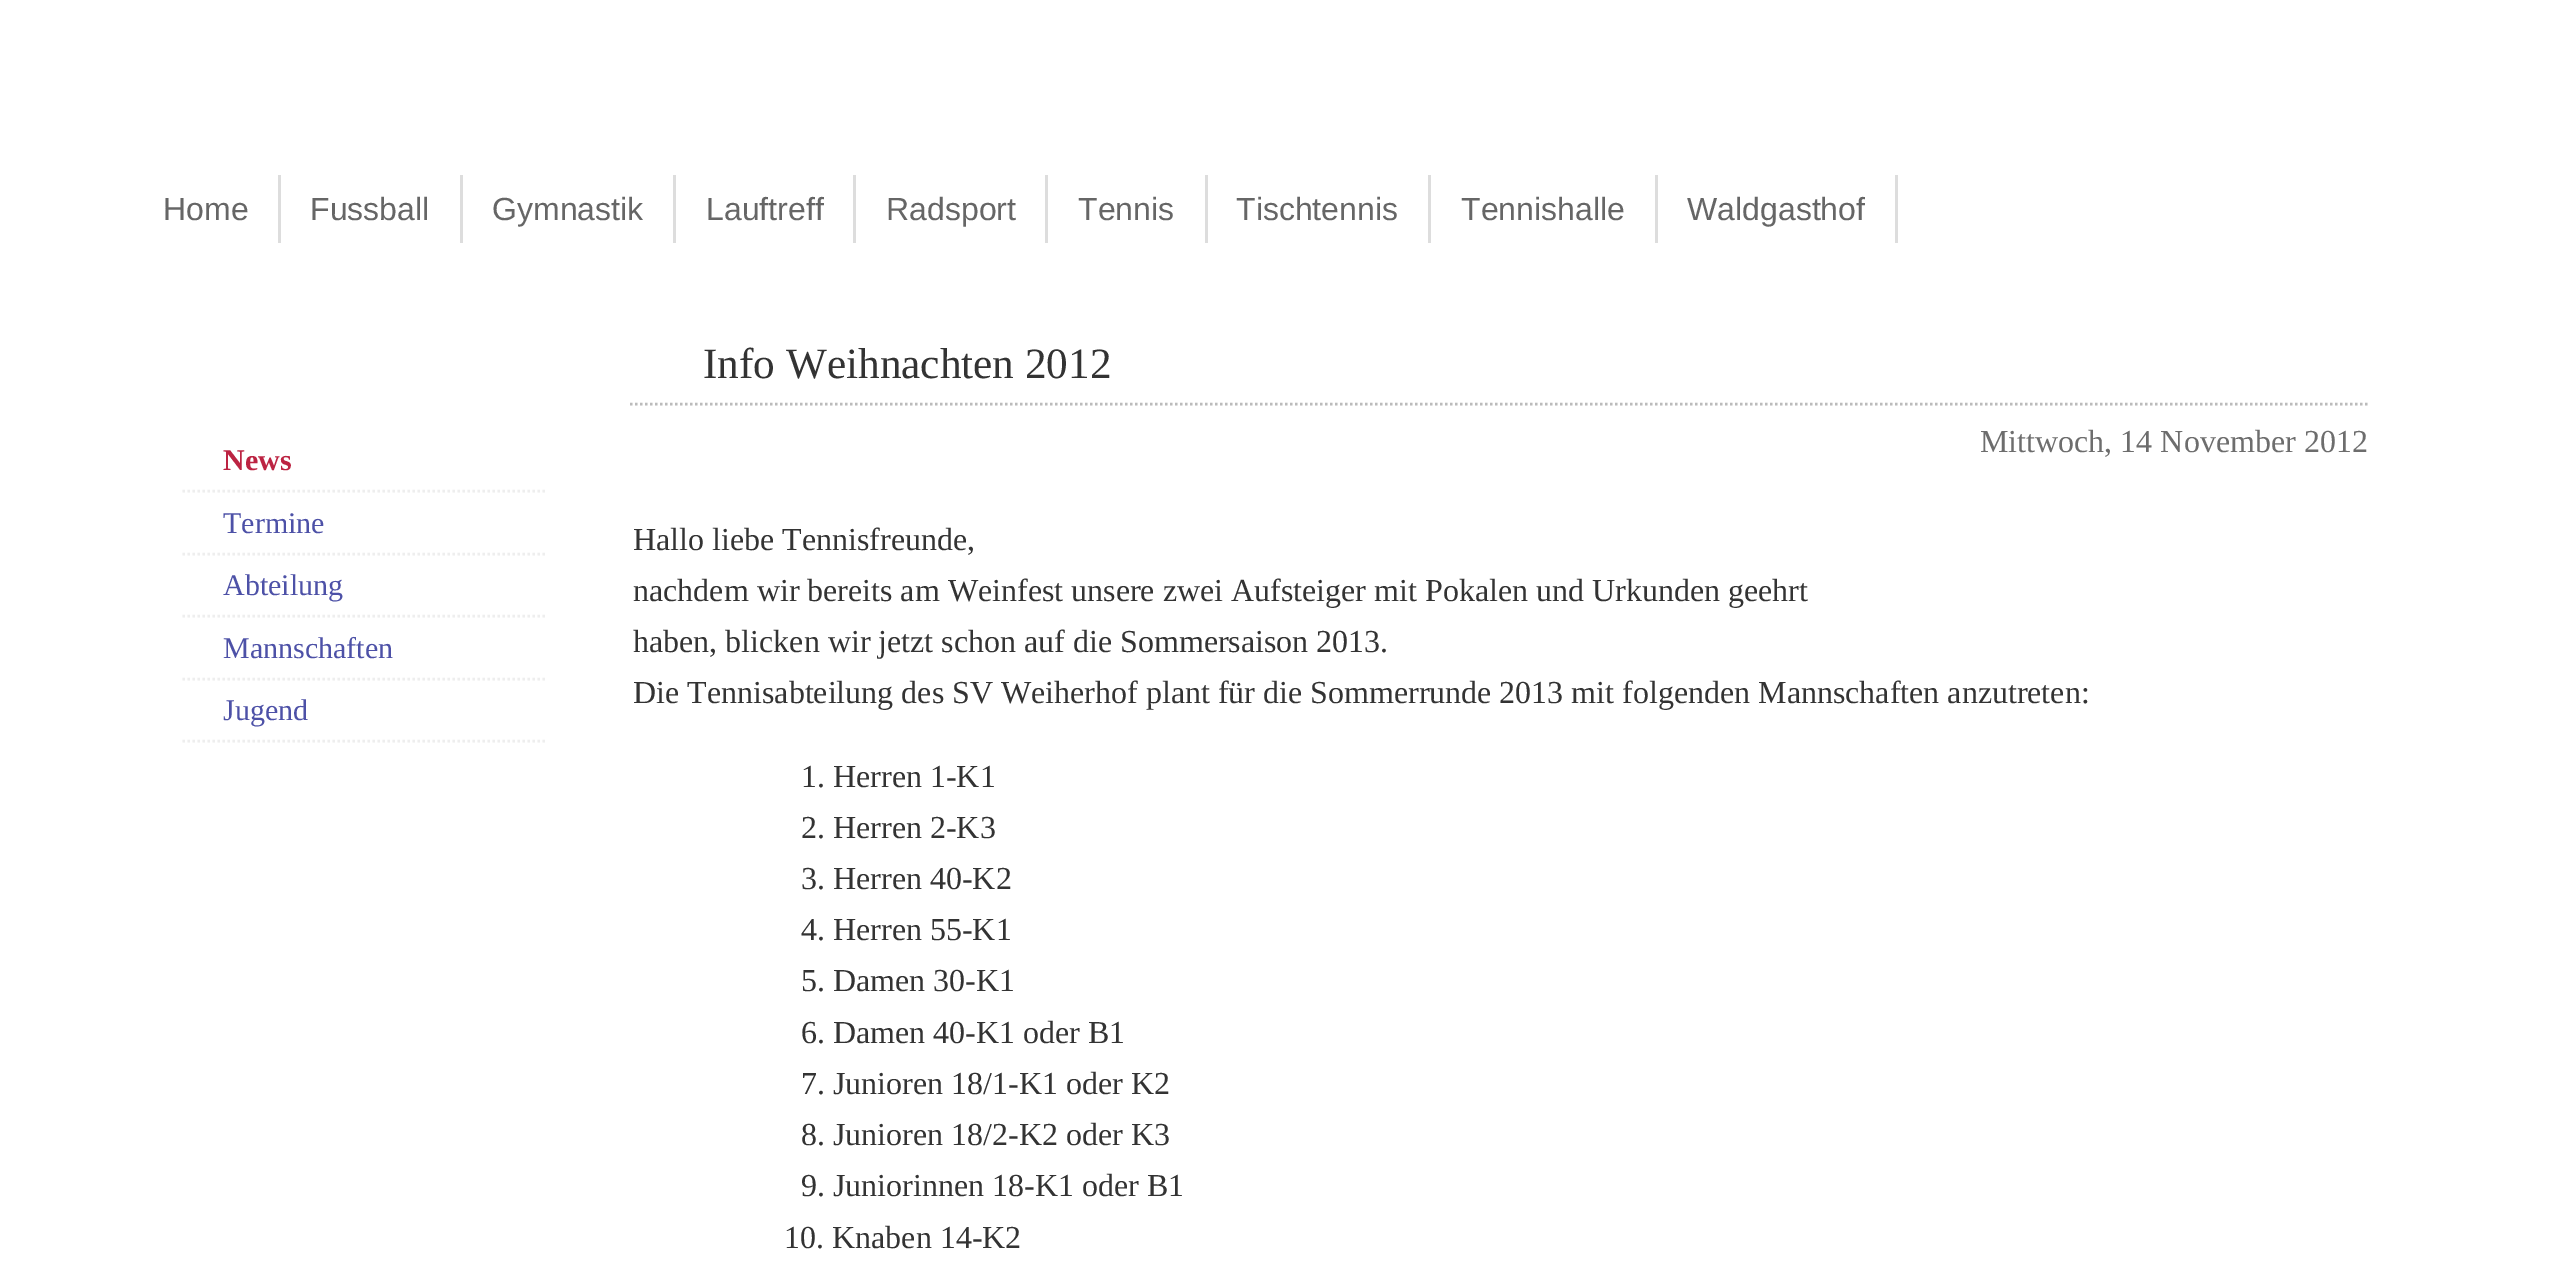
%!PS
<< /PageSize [2564 1282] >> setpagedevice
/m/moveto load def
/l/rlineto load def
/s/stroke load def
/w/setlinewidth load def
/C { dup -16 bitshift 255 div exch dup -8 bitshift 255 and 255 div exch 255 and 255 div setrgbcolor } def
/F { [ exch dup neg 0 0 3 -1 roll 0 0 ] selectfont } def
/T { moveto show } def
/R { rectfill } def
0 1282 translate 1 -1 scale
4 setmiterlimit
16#FFFFFF C
0 0 2564 1282 R
16#DDDDDD C
278 175 3 68 R
/LiberationSans-Regular 32 F
16#666666 C
(Home) 163 220 T
16#DDDDDD C
460 175 3 68 R
16#666666 C
(Fussball) 310 220 T
16#DDDDDD C
673 175 3 68 R
16#666666 C
(Gymnastik) 492 220 T
16#DDDDDD C
853 175 3 68 R
16#666666 C
(Lauftreff) 706 220 T
16#DDDDDD C
1045 175 3 68 R
16#666666 C
(Radsport) 886 220 T
16#DDDDDD C
1205 175 3 68 R
16#666666 C
(Tennis) 1078 220 T
16#DDDDDD C
1428 175 3 68 R
16#666666 C
(Tischtennis) 1236 220 T
16#DDDDDD C
1655 175 3 68 R
16#666666 C
(Tennishalle) 1461 220 T
16#DDDDDD C
1895 175 3 68 R
16#666666 C
(Waldgasthof) 1687 220 T
16#EEEEEE C
2.5 w
[2.5 2.5] 0 setdash
182.5 491 m 362.5 0 l s
/LiberationSerif-Bold 30 F
16#BC2342 C
(News) 223 470 T
16#EEEEEE C
182.5 554 m 362.5 0 l s
/LiberationSerif-Regular 30 F
16#4D51A7 C
(Termine) 223 533 T
16#EEEEEE C
182.5 616 m 362.5 0 l s
16#4D51A7 C
(Abteilung) 223 595 T
16#EEEEEE C
182.5 679 m 362.5 0 l s
16#4D51A7 C
(Mannschaften) 223 658 T
16#EEEEEE C
182.5 741 m 362.5 0 l s
16#4D51A7 C
(Jugend) 223 720 T
16#BBBBBB C
630 404 m 1740 0 l s
/LiberationSerif-Regular 43.25 F
16#333333 C
(Info Weihnachten 2012) 703 378 T
/LiberationSerif-Regular 32 F
16#6D6D6D C
(Mittwoch, 14 November 2012) 1980 452 T
16#333333 C
(Hallo liebe Tennisfreunde,) 633 550 T
(nachdem wir bereits am Weinfest unsere zwei Aufsteiger mit Pokalen und Urkunden geehrt) 633 601 T
(haben, blicken wir jetzt schon auf die Sommersaison 2013.) 633 652 T
(Die Tennisabteilung des SV Weiherhof plant für die Sommerrunde 2013 mit folgenden Mannschaften anzutreten:) 633 703 T
(1. Herren 1-K1) 801 787 T
(2. Herren 2-K3) 801 838 T
(3. Herren 40-K2) 801 889 T
(4. Herren 55-K1) 801 940 T
(5. Damen 30-K1) 801 991 T
(6. Damen 40-K1 oder B1) 801 1043 T
(7. Junioren 18/1-K1 oder K2) 801 1094 T
(8. Junioren 18/2-K2 oder K3) 801 1145 T
(9. Juniorinnen 18-K1 oder B1) 801 1196 T
(10. Knaben 14-K2) 784 1248 T
showpage
